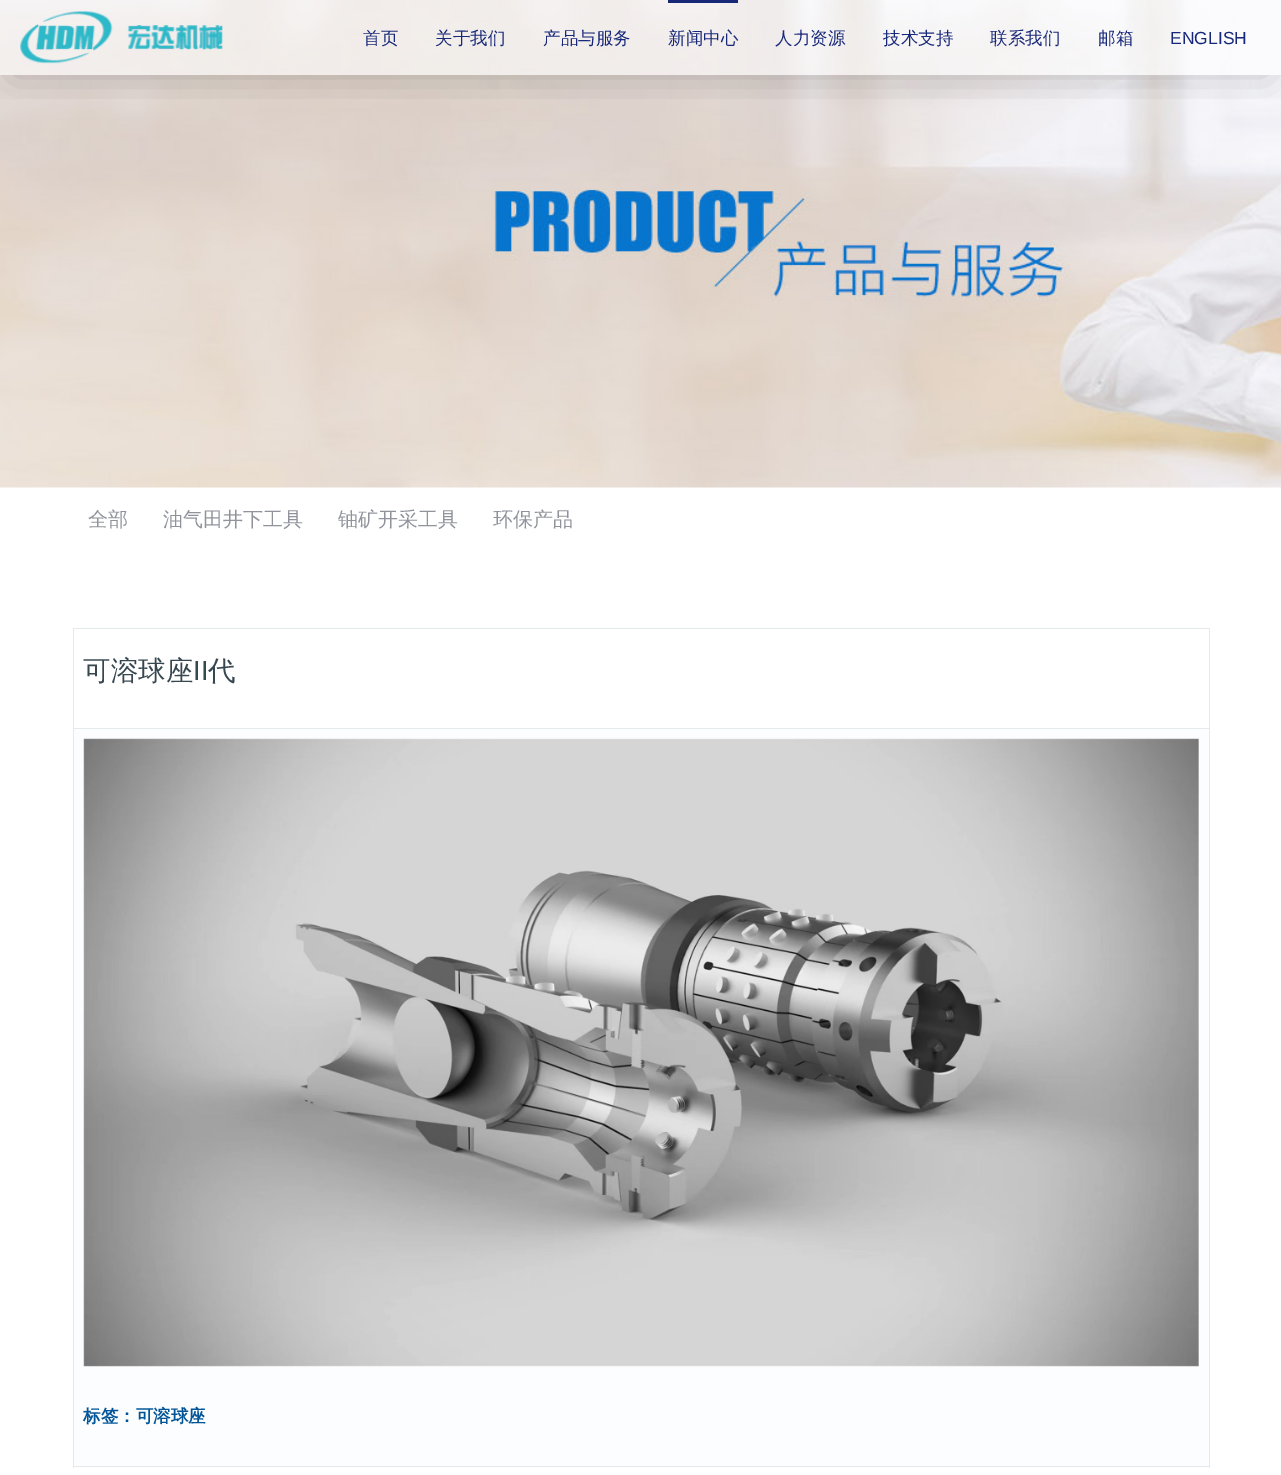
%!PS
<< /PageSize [1281 1475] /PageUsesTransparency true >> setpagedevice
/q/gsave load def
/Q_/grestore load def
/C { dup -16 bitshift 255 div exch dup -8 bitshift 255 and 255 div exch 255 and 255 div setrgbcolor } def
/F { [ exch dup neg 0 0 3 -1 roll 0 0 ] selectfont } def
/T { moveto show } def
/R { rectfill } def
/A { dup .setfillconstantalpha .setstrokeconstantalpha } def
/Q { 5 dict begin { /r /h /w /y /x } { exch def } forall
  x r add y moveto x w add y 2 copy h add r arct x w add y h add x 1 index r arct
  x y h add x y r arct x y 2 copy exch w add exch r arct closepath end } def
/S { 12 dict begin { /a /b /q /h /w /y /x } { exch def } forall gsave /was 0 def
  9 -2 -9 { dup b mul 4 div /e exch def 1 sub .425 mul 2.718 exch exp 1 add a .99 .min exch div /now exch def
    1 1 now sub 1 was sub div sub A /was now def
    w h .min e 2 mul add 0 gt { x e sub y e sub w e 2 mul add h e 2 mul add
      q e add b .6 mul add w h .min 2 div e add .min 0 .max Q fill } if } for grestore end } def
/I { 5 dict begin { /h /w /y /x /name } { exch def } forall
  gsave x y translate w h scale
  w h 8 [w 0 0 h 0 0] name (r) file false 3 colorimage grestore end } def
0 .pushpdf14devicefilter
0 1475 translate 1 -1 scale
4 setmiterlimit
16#FFFFFF C
0 0 1281 1475 R
(1.rgb) 0 0 1281 488 I
q
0 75 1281 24 rectclip
16#000000 C
13 25 1256 50 0 19 .2 S
Q_
0.6 A
0 0 1281 75 R
1 A
(2.rgb) 20 11 203 53 I
/WenQuanYiZenHei-Medium 17.5 F
16#182879 C
(首页) 363 44 T
(关于我们) 435 44 T
(产品与服务) 543 44 T
668 0 70 3 R
(新闻中心) 668 44 T
(人力资源) 775 44 T
q
883 0 70 75 rectclip
(技术支持) 883 44 T
Q_
(联系我们) 990 44 T
(邮箱) 1098 44 T
/LiberationSans-Regular 17.5 F
(ENGLISH) 1170 44 T
/WenQuanYiZenHei-Medium 20 F
16#90939B C
(全部) 88 526 T
(油气田井下工具) 163 526 T
(铀矿开采工具) 338 526 T
(环保产品) 493 526 T
16#E4EAEC C
73 628 1137 1 R
73 728 1137 1 R
1209 728 1 740 R
1209 628 1 101 R
73 1466 1137 1 R
73 728 1 740 R
73 628 1 101 R
/WenQuanYiZenHei-Medium 27.5 F
16#37474F C
(可溶球座) 83 680 T
/LiberationSans-Regular 27.5 F
(II) 193 680 T
/WenQuanYiZenHei-Medium 27.5 F
(代) 208 680 T
16#FCFDFE C
74 729 1135 737 R
(3.rgb) 83 738 1116 629 I
/WenQuanYiZenHei-Bold 17.5 F
16#015498 C
(标签：可溶球座) 83 1422 T
.poppdf14devicefilter showpage
